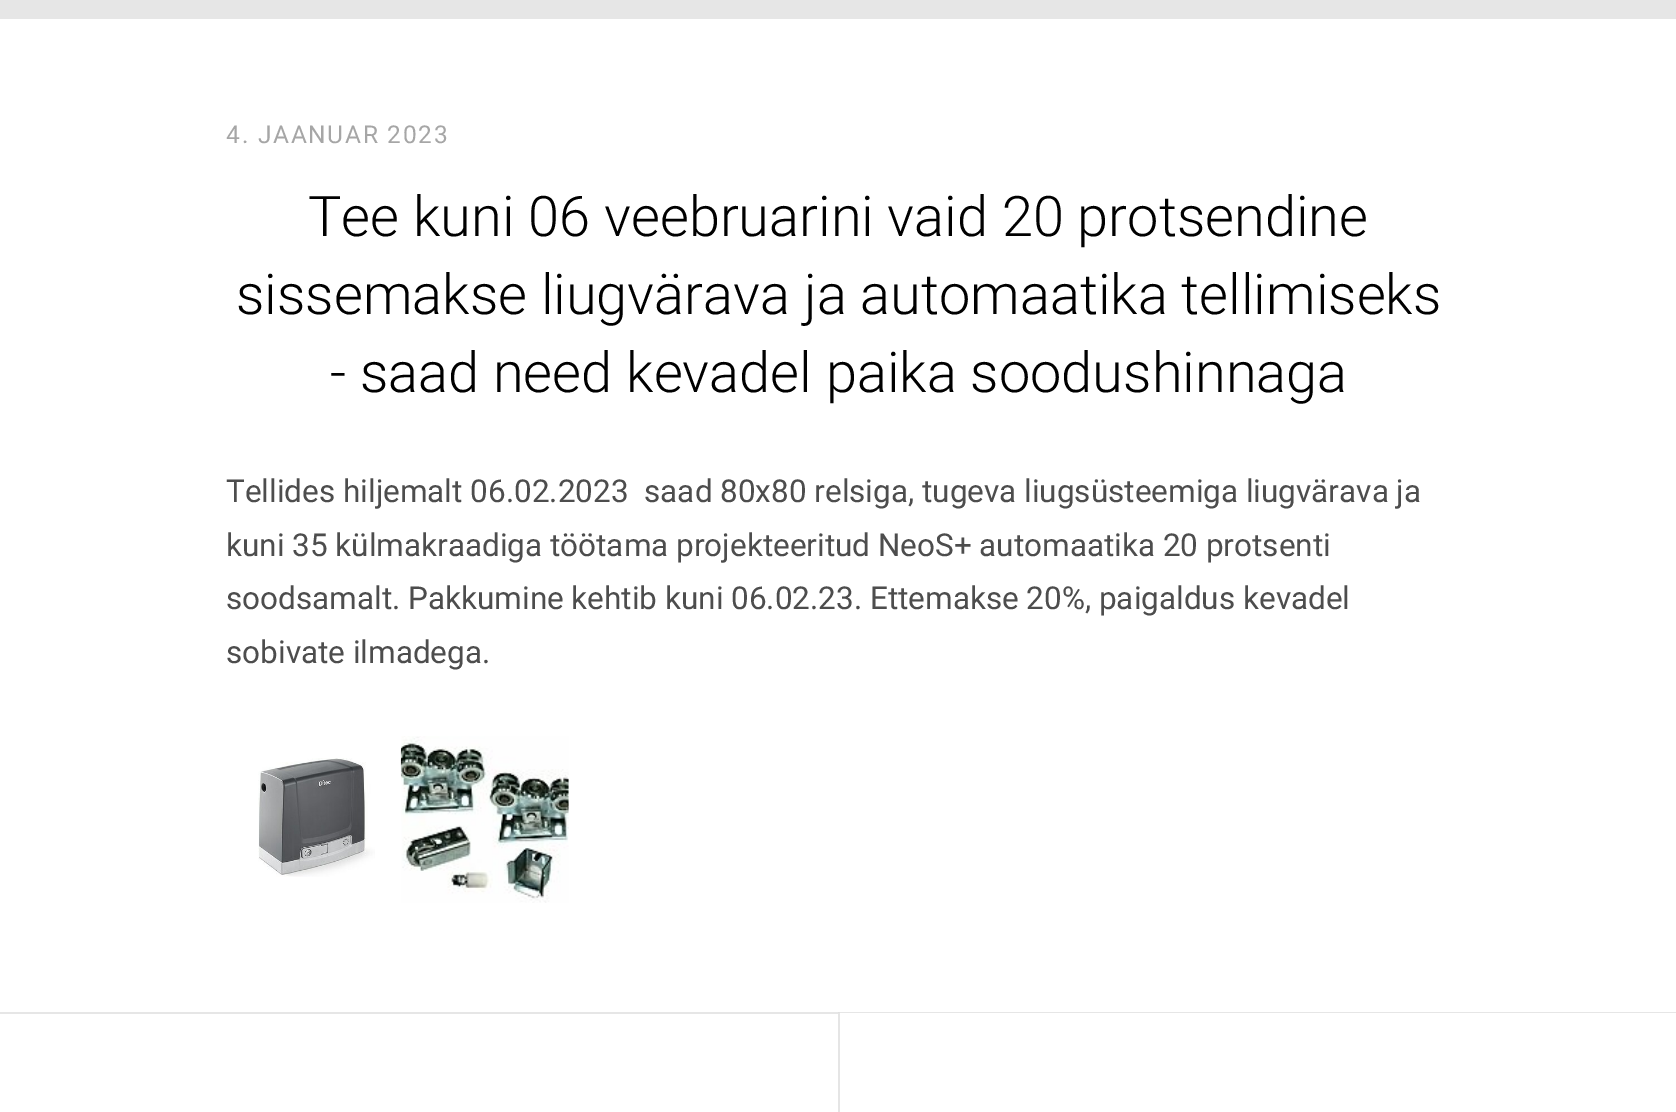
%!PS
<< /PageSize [1676 1112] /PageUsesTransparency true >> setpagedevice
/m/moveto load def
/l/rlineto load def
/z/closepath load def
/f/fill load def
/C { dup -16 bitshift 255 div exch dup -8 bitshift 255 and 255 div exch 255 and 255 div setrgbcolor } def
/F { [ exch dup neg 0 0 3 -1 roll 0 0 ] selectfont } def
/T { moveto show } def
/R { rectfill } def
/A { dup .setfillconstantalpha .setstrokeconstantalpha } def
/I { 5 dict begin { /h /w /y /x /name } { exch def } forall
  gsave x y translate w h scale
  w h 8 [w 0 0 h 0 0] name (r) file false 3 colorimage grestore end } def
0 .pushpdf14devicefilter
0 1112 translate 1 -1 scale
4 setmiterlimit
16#FFFFFF C
0 0 1676 1112 R
16#E6E6E6 C
0 0 1676 19 R
/Roboto-Regular 24.5 F
16#A6A6A6 C
226 143 m 1.75 0 (4. JAANUAR 2023) ashow
/Roboto-Light 56 F
16#000000 C
(Tee kuni 06 veebruarini vaid 20 protsendine) 308 236 T
(sissemakse liugvärava ja automaatika tellimiseks) 236 314 T
(- saad need kevadel paika soodushinnaga) 330 392 T
/Roboto-Regular 31.5 F
16#4D4D4D C
(Tellides hiljemalt 06.02.2023) 226 502 T
(saad 80x80 relsiga, tugeva liugsüsteemiga liugvärava ja) 644 502 T
(kuni 35 külmakraadiga töötama projekteeritud NeoS+ automaatika 20 protsenti) 226 556 T
(soodsamalt. Pakkumine kehtib kuni 06.02.23. Ettemakse 20%, paigaldus kevadel) 226 609 T
(sobivate ilmadega.) 226 663 T
(1.rgb) 258 758 117 119 I
(2.rgb) 400 736 169 167 I
16#E6E6E6 C
0 1012 838 2 R
838 1012 m 838 0 l 0 1 l -836 0 l z f
0.1 A
16#000000 C
838 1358 m 0 -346 l 2 1 l 0 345 l z f
.poppdf14devicefilter showpage
